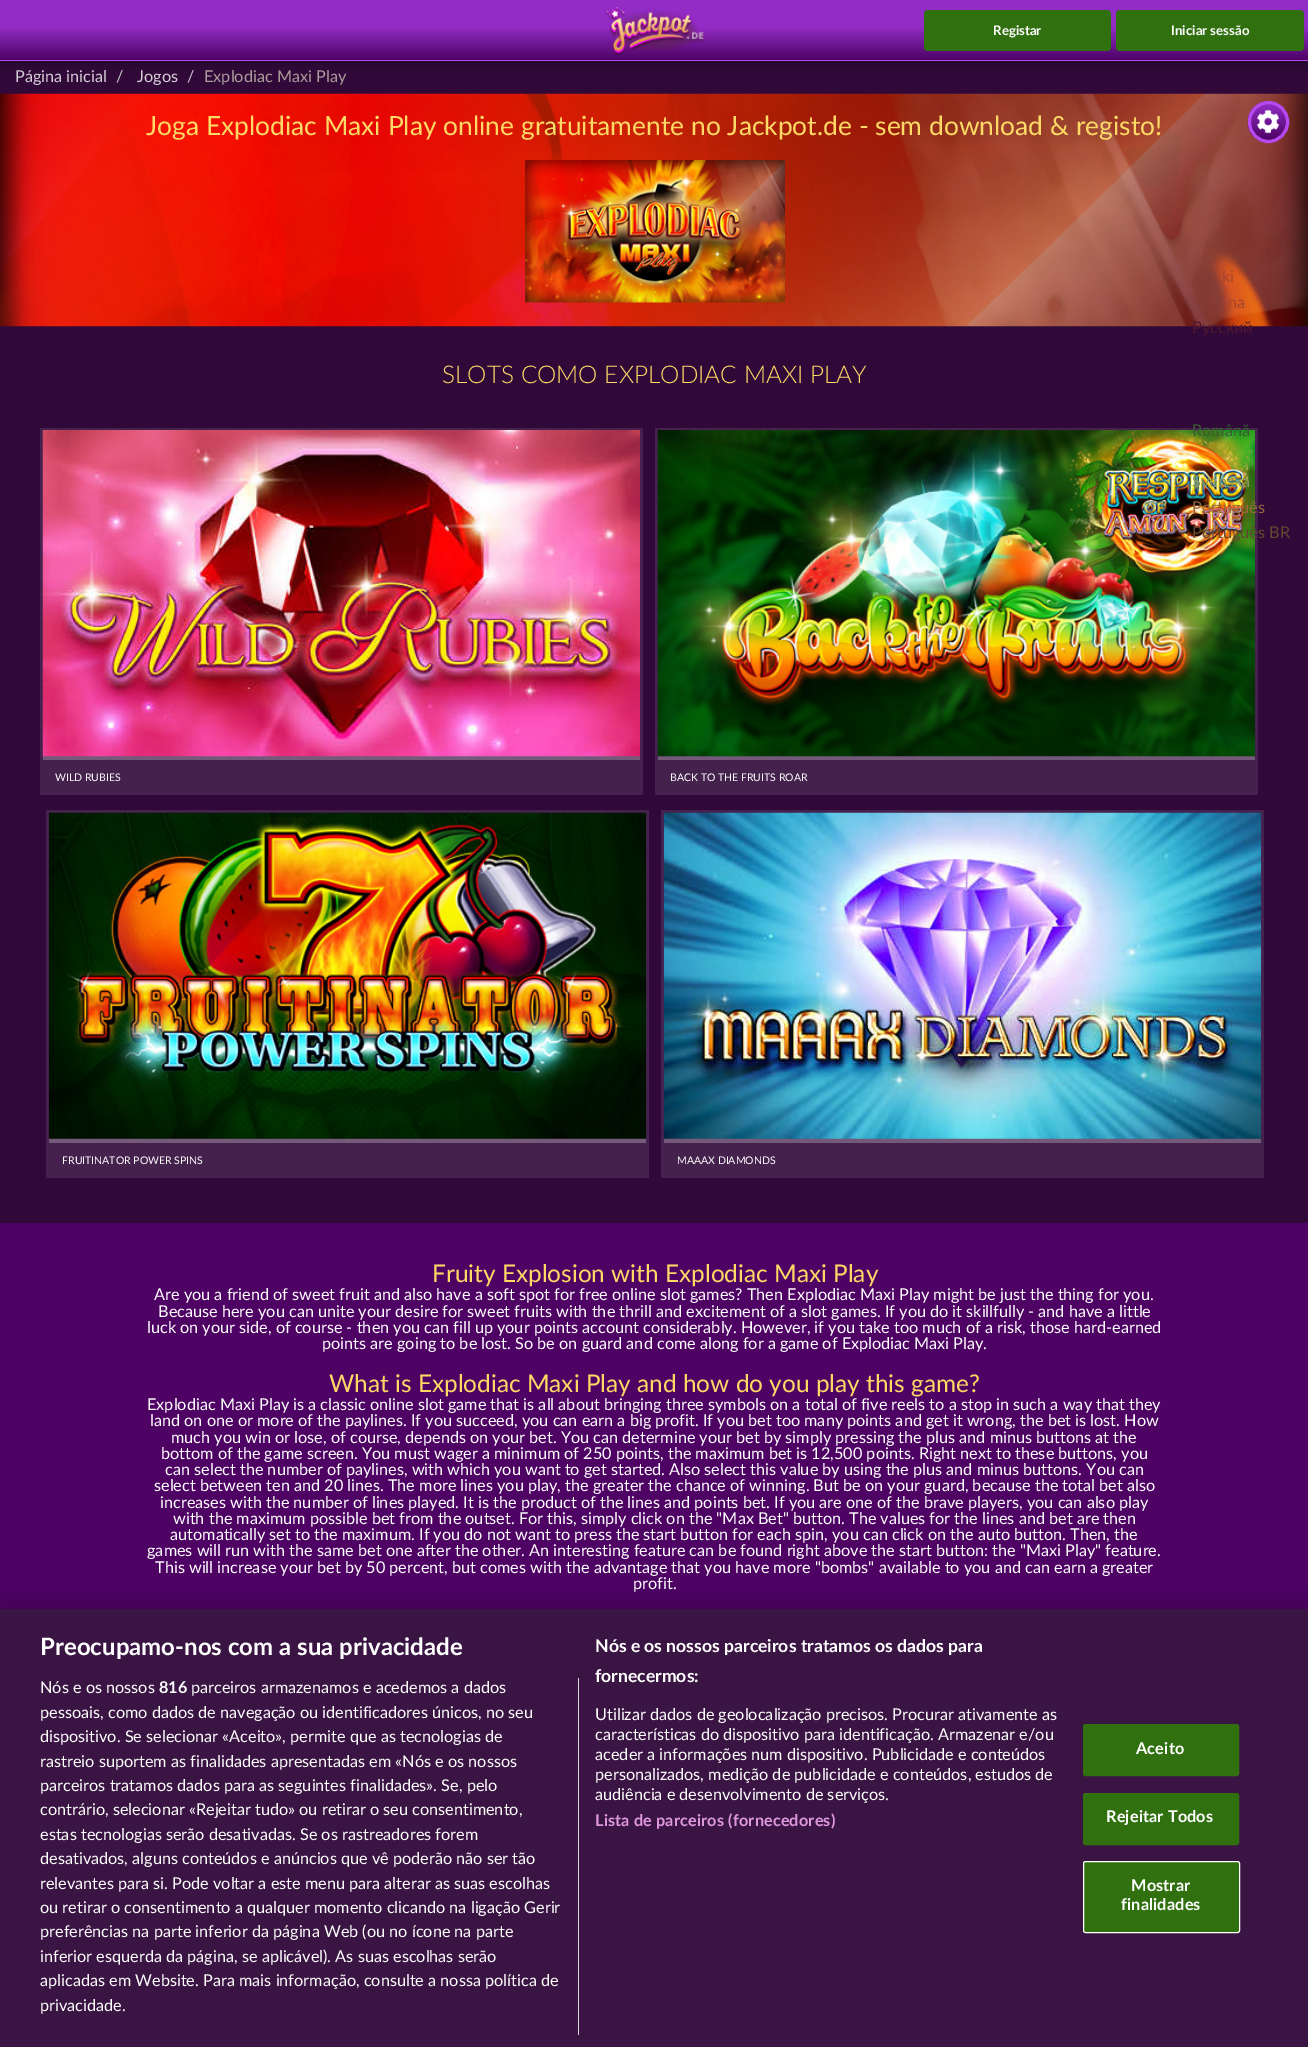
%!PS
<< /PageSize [1308 2047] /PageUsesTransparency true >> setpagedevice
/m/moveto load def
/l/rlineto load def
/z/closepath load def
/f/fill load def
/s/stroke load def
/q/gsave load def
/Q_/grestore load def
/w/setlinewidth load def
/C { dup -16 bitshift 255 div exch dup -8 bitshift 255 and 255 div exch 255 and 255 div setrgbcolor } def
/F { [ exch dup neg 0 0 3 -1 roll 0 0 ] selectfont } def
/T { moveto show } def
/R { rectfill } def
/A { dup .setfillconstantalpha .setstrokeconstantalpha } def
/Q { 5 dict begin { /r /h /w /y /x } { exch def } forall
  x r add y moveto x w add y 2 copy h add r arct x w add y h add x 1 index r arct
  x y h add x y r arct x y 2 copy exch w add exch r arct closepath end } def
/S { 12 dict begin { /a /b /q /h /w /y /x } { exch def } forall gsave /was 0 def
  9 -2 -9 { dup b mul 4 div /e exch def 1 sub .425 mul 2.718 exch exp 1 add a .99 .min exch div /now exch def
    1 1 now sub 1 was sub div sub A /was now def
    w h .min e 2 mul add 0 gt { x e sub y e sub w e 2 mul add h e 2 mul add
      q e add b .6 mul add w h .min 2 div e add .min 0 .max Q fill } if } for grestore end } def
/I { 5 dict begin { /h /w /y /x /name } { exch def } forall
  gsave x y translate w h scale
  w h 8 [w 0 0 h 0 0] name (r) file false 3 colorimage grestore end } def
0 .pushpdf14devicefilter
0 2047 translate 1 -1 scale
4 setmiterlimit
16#300939 C
0 0 1308 2047 R
16#000000 C
0 3 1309 61 0 4.5 .3 S
q 0 0 m 1308 0 l 0 60 l -1308 0 l z clip newpath
<< /ShadingType 2 /ColorSpace /DeviceRGB /Coords [654 0 654 60] /Extend [true true] /Function << /FunctionType 3 /Domain [0 1] /Functions [<< /FunctionType 2 /Domain [0 1] /C0 [.569 .173 .773] /C1 [.569 .173 .773] /N 1 >> << /FunctionType 2 /Domain [0 1] /C0 [.569 .173 .773] /C1 [.302 .008 .392] /N 1 >>] /Bounds [.45] /Encode [0 1 0 1] >> >> shfill Q_
16#B849F1 C
0 60 1308 1 R
(1.rgb) 604 6 101 50 I
16#30700F C
924 10 187 41 4 Q f
/Lato-Bold 13.25 F
16#FFFFFF C
(Registar) 993 35 T
16#30700F C
1116 10 188 41 4 Q f
16#FFFFFF C
(Iniciar sessão) 1171 35 T
/Lato-Regular 16.25 F
16#D6CED7 C
(Página inicial) 15 82 T
16#CCCCCC C
(/) 116 82 T
16#D6CED7 C
(Jogos) 137 82 T
16#CCCCCC C
(/) 187 82 T
16#AC9D9D C
(Explodiac Maxi Play) 204 82 T
(2.rgb) 0 93 1308 234 I
/Lato-Regular 26.4 F
16#FFD966 C
(Joga Explodiac Maxi Play online gratuitamente no Jackpot.de - sem download & registo!) 146 135 T
(3.rgb) 525 160 260 143 I
/Lato-Light 24.4 F
(SLOTS COMO EXPLODIAC MAXI PLAY) 442 383 T
16#45224D C
40 428 603 367 R
16#74597A C
43 756 597 4 R
(4.rgb) 42 430 598 327 I
/Lato-Regular 10.5 F
16#FFFFFF C
(WILD RUBIES) 55 781 T
16#45224D C
655 428 603 367 R
16#74597A C
658 756 597 4 R
(5.rgb) 657 430 598 327 I
16#FFFFFF C
(BACK TO THE FRUITS ROAR) 670 781 T
16#45224D C
46 810 603 368 R
16#74597A C
49 1138 597 5 R
(6.rgb) 48 812 599 327 I
16#FFFFFF C
(FRUITINATOR POWER SPINS) 62 1164 T
16#45224D C
661 810 603 368 R
16#74597A C
664 1138 597 5 R
(7.rgb) 663 812 599 327 I
16#FFFFFF C
(MAAAX DIAMONDS) 677 1164 T
16#4D0264 C
0 1223 1308 386 R
/Lato-Regular 24.4 F
16#FFD966 C
(Fruity Explosion with Explodiac Maxi Play) 432 1282 T
/Lato-Regular 16.25 F
16#FFFFFF C
(Are you a friend of sweet fruit and also have a soft spot for free online slot games? Then Explodiac Maxi Play might be just the thing for you.) 154 1300 T
(Because here you can unite your desire for sweet fruits with the thrill and excitement of a slot games. If you do it skillfully - and have a little) 158 1317 T
(luck on your side, of course - then you can fill up your points account considerably. However, if you take too much of a risk, those hard-earned) 147 1333 T
(points are going to be lost. So be on guard and come along for a game of Explodiac Maxi Play.) 322 1349 T
/Lato-Regular 24.4 F
16#FFD966 C
(What is Explodiac Maxi Play and how do you play this game?) 329 1392 T
/Lato-Regular 16.25 F
16#FFFFFF C
(Explodiac Maxi Play is a classic online slot game that is all about bringing three symbols on a total of five reels to a stop in such a way that they) 147 1410 T
(land on one or more of the paylines. If you succeed, you can earn a big profit. If you bet too many points and get it wrong, the bet is lost. How) 150 1426 T
(much you win or lose, of course, depends on your bet. You can determine your bet by simply pressing the plus and minus buttons at the) 171 1443 T
(bottom of the game screen. You must wager a minimum of 250 points, the maximum bet is 12,500 points. Right next to these buttons, you) 161 1459 T
(can select the number of paylines, with which you want to get started. Also select this value by using the plus and minus buttons. You can) 165 1475 T
(select between ten and 20 lines. The more lines you play, the greater the chance of winning. But be on your guard, because the total bet also) 154 1491 T
(increases with the number of lines played. It is the product of the lines and points bet. If you are one of the brave players, you can also play) 160 1508 T
(with the maximum possible bet from the outset. For this, simply click on the "Max Bet" button. The values for the lines and bet are then) 173 1524 T
(automatically set to the maximum. If you do not want to press the start button for each spin, you can click on the auto button. Then, the) 170 1540 T
(games will run with the same bet one after the other. An interesting feature can be found right above the start button: the "Maxi Play" feature.) 147 1556 T
(This will increase your bet by 50 percent, but comes with the advantage that you have more "bombs" available to you and can earn a greater) 155 1573 T
(profit.) 633 1589 T
(8.rgb) 1247 101 42 42 I
16#B849F1 C
3 w
1249.5 102.5 38 39 19 Q s
16#A3452E C
(ki) 1222 282 T
(na) 1228 308 T
16#521730 C
(Русский) 1192 333 T
16#395C30 C
(Română) 1192 436 T
16#8F985A C
(Svenska) 1192 487 T
16#96683D C
(Português) 1192 513 T
16#63482F C
(Português BR) 1192 538 T
16#000000 C
0 1609 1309 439 0 11 .2 S
16#3A1443 C
0 1609 1308 438 R
/Lato-Bold 24 F
16#FFFFFF C
(Preocupamo-nos com a sua privacidade) 40 1655 T
/Lato-Bold 17.6 F
(Nós e os nossos parceiros tratamos os dados para) 595 1652 T
(fornecermos:) 595 1682 T
/Lato-Regular 16.25 F
(Utilizar dados de geolocalização precisos. Procurar ativamente as) 595 1720 T
(características do dispositivo para identificação. Armazenar e/ou) 595 1740 T
(aceder a informações num dispositivo. Publicidade e conteúdos) 595 1760 T
(personalizados, medição de publicidade e conteúdos, estudos de) 595 1780 T
(audiência e desenvolvimento de serviços.) 595 1800 T
/Lato-Bold 16.25 F
16#DD97DD C
595 1826 m .15 0 (Lista de parceiros \(fornecedores\)) ashow
16#D8D8D8 C
578 1678 1 357 R
/Lato-Regular 16.25 F
16#FFFFFF C
(Nós e os nossos) 40 1693 T
/Lato-Bold 16.25 F
(816) 159 1693 T
/Lato-Regular 16.25 F
(parceiros armazenamos e acedemos a dados) 191 1693 T
(pessoais, como dados de navegação ou identificadores únicos, no seu) 40 1718 T
(dispositivo. Se selecionar «Aceito», permite que as tecnologias de) 40 1742 T
(rastreio suportem as finalidades apresentadas em «Nós e os nossos) 40 1767 T
(parceiros tratamos dados para as seguintes finalidades». Se, pelo) 40 1791 T
(contrário, selecionar «Rejeitar tudo» ou retirar o seu consentimento,) 40 1815 T
(estas tecnologias serão desativadas. Se os rastreadores forem) 40 1840 T
(desativados, alguns conteúdos e anúncios que vê poderão não ser tão) 40 1864 T
(relevantes para si. Pode voltar a este menu para alterar as suas escolhas) 40 1889 T
(ou retirar o consentimento a qualquer momento clicando na ligação Gerir) 40 1913 T
(preferências na parte inferior da página Web \(ou no ícone na parte) 40 1937 T
(inferior esquerda da página, se aplicável\). As suas escolhas serão) 40 1962 T
(aplicadas em Website. Para mais informação, consulte a nossa política de) 40 1986 T
(privacidade.) 40 2011 T
16#30700F C
1083.5 1724.5 155 51 2 Q q f Q_
1 w
s
/Lato-Bold 16.25 F
16#FFFFFF C
1136 1754 m .15 0 (Aceito) ashow
16#30700F C
1083.5 1793.5 155 51 2 Q q f Q_
s
16#FFFFFF C
1106 1822 m .15 0 (Rejeitar Todos) ashow
16#30700F C
1083.5 1861.5 156 71 2 Q q f Q_
16#FFFFFF C
s
1131 1891 m .15 0 (Mostrar) ashow
1121 1910 m .15 0 (finalidades) ashow
.poppdf14devicefilter showpage
